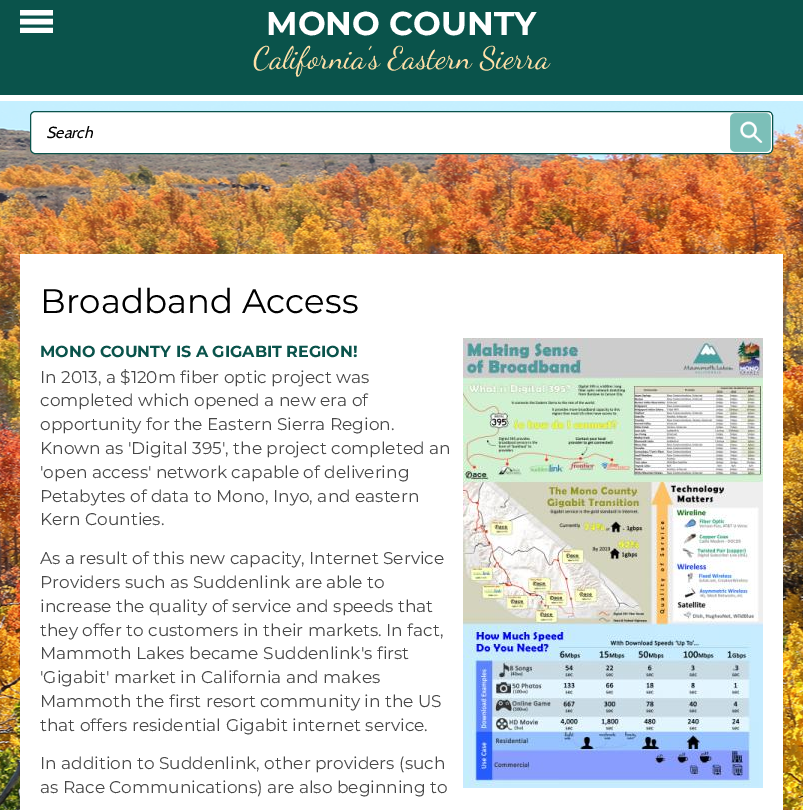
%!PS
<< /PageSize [803 810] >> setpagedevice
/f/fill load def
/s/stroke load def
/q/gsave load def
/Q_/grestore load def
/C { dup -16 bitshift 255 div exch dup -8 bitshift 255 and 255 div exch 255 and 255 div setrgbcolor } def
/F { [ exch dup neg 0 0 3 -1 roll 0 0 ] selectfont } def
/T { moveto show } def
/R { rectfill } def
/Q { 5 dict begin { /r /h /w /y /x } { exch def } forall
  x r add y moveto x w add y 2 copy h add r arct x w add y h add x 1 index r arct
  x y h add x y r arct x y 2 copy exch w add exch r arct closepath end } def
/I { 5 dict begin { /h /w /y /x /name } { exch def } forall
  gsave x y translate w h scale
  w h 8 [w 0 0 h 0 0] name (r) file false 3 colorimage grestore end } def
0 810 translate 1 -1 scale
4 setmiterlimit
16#FFFFFF C
0 0 803 810 R
(1.rgb) 0 101 803 709 I
16#0A534B C
0 0 803 95 R
(2.rgb) 20 10 33 23 I
/Montserrat-Bold 33 F
16#FFFFFF C
(MONO COUNTY) 266 35 T
/DancingScript-Regular 31 F
16#FFE0A8 C
(California’s Eastern Sierra) 253 68 T
16#FFFFFF C
30.5 111.5 742 42 4.5 Q q f Q_
16#0A534B C
s
/Cabin-Italic 16 F
16#000000 C
(Search) 46 138 T
(3.rgb) 730 113 41 39 I
16#FFFFFF C
20 254 763 556 R
/Montserrat-Regular 34 F
16#000000 C
(Broadband Access) 40 313 T
/Montserrat-Bold 16 F
16#0A534B C
(MONO COUNTY IS A GIGABIT REGION!) 40 357 T
/Montserrat-Regular 17 F
16#474747 C
(In 2013, a $120m fiber optic project was) 40 383 T
(completed which opened a new era of) 40 406 T
(opportunity for the Eastern Sierra Region.) 40 430 T
(Known as 'Digital 395', the project completed an) 40 454 T
('open access' network capable of delivering) 40 478 T
(Petabytes of data to Mono, Inyo, and eastern) 40 502 T
(Kern Counties.) 40 525 T
(As a result of this new capacity, Internet Service) 40 564 T
(Providers such as Suddenlink are able to) 40 588 T
(increase the quality of service and speeds that) 40 612 T
(they offer to customers in their markets. In fact,) 40 636 T
(Mammoth Lakes became Suddenlink's first) 40 659 T
('Gigabit' market in California and makes) 40 683 T
(Mammoth the first resort community in the US) 40 707 T
(that offers residential Gigabit internet service.) 40 731 T
(In addition to Suddenlink, other providers \(such) 40 769 T
(as Race Communications\) are also beginning to) 40 793 T
(4.rgb) 463 338 300 450 I
showpage
